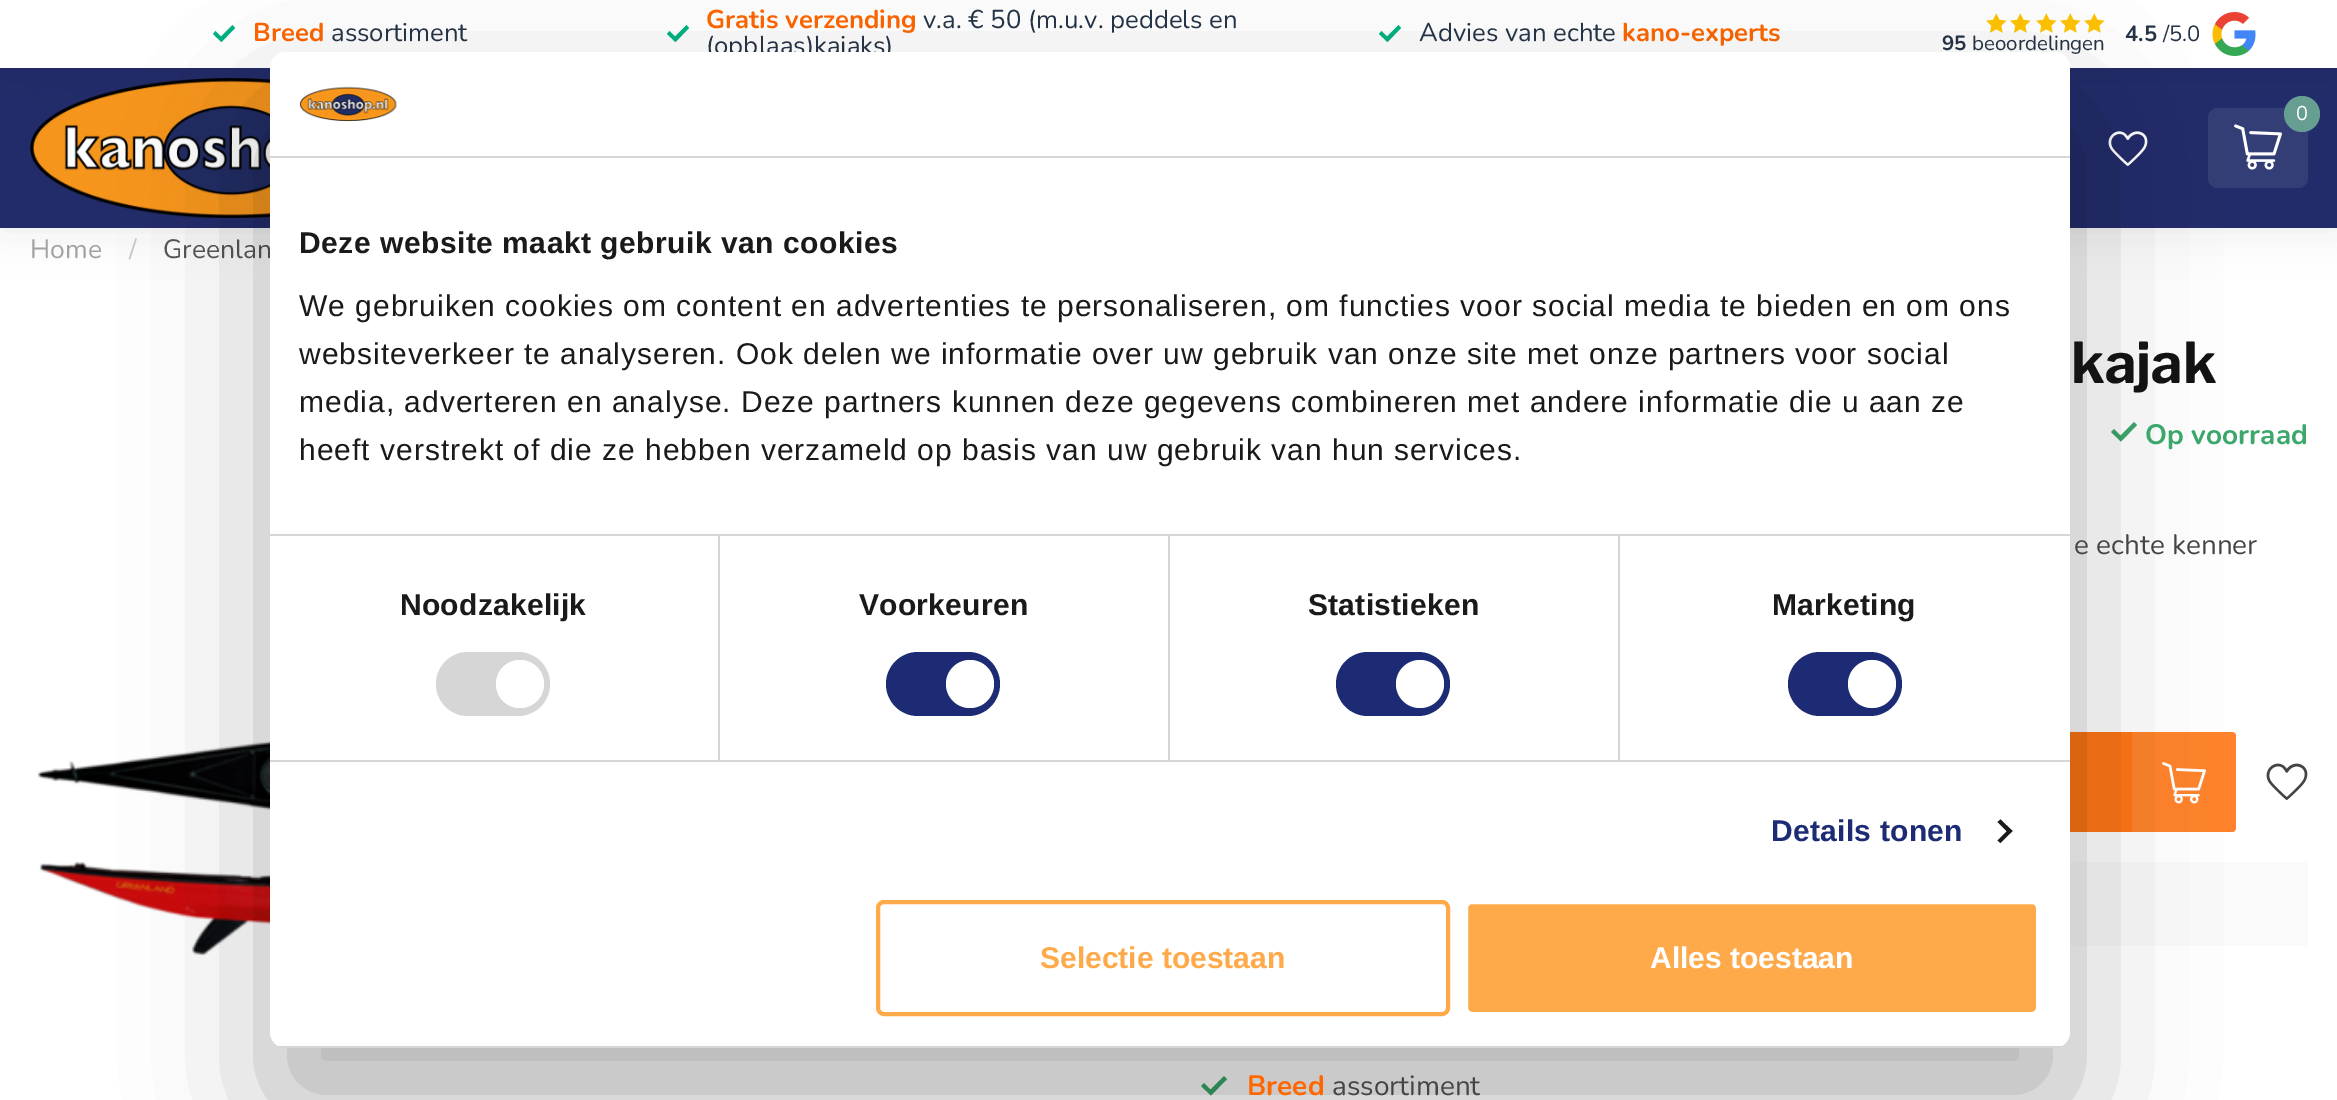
%!PS
<< /PageSize [2337 1100] /PageUsesTransparency true >> setpagedevice
/m/moveto load def
/l/rlineto load def
/z/closepath load def
/f/fill load def
/s/stroke load def
/q/gsave load def
/Q_/grestore load def
/w/setlinewidth load def
/C { dup -16 bitshift 255 div exch dup -8 bitshift 255 and 255 div exch 255 and 255 div setrgbcolor } def
/F { [ exch dup neg 0 0 3 -1 roll 0 0 ] selectfont } def
/T { moveto show } def
/R { rectfill } def
/A { dup .setfillconstantalpha .setstrokeconstantalpha } def
/O { newpath 0 360 arc closepath } def
/Q { 5 dict begin { /r /h /w /y /x } { exch def } forall
  x r add y moveto x w add y 2 copy h add r arct x w add y h add x 1 index r arct
  x y h add x y r arct x y 2 copy exch w add exch r arct closepath end } def
/S { 12 dict begin { /a /b /q /h /w /y /x } { exch def } forall gsave /was 0 def
  9 -2 -9 { dup b mul 4 div /e exch def 1 sub .425 mul 2.718 exch exp 1 add a .99 .min exch div /now exch def
    1 1 now sub 1 was sub div sub A /was now def
    w h .min e 2 mul add 0 gt { x e sub y e sub w e 2 mul add h e 2 mul add
      q e add b .6 mul add w h .min 2 div e add .min 0 .max Q fill } if } for grestore end } def
/I { 5 dict begin { /h /w /y /x /name } { exch def } forall
  gsave x y translate w h scale
  w h 8 [w 0 0 h 0 0] name (r) file false 3 colorimage grestore end } def
0 .pushpdf14devicefilter
0 1100 translate 1 -1 scale
4 setmiterlimit
16#FFFFFF C
0 0 2337 1100 R
16#000000 C
0 0 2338 228 0 22 .08 S
16#222C6A C
0 68 2337 160 R
16#000000 C
0 0 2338 68 0 22 .08 S
16#FFFFFF C
0 0 2337 68 R
16#00B282 C
221.5 42 m -8.5 -8 l 2.5 -3 l 5.5 5.5 l 11.5 -11.5 l 2.5 3 l z f
/Nunito-Bold 25.75 F
16#FF6600 C
(Breed) 253 41 T
/Nunito-Regular 25.75 F
16#253448 C
(assortiment) 331 41 T
16#00B282 C
675.5 42 m -8.5 -8 l 2.5 -3 l 5.5 5.5 l 11.5 -11.5 l 2.5 3 l z f
/Nunito-Bold 25.75 F
16#FF6600 C
(Gratis verzending) 706 28 T
/Nunito-Regular 25.75 F
16#253448 C
(v.a. € 50 \(m.u.v. peddels en) 923 28 T
(\(opblaas\)kajaks\)) 706 54 T
16#00B282 C
1387.5 42 m -8.5 -8 l 2.5 -3 l 5.5 5.5 l 11.5 -11.5 l 2.5 3 l z f
16#253448 C
(Advies van echte) 1419 41 T
/Nunito-Bold 25.75 F
16#FF6600 C
(kano-experts) 1622 41 T
(1.rgb) 1986 13 21 20 I
(1.rgb) 2010 13 21 20 I
(1.rgb) 2036 13 21 20 I
(1.rgb) 2060 13 21 20 I
(1.rgb) 2084 13 21 20 I
/Nunito-Bold 20.5 F
16#253448 C
(95) 1942 50 T
/Nunito-Regular 20.5 F
(beoordelingen) 1972 50 T
/Nunito-Bold 22 F
(4.5) 2125 41 T
/Nunito-Regular 22 F
(/5.0) 2163 41 T
(2.rgb) 2212 12 44 44 I
(3.rgb) 30 78 240 140 I
16#343E76 C
2208 108 100 80 10 Q f
16#669F91 C
2302 114 18 O f
/Nunito-Regular 20 F
16#FFFFFF C
(0) 2296 120 T
(4.rgb) 2234 124 48 46 I
(5.rgb) 2108 131 40 35 I
/Nunito-Regular 26.5 F
16#A2A2A2 C
(Home) 30 258 T
16#C7C7C7 C
(/) 129 258 T
16#575757 C
(Greenlan) 163 258 T
(7.rgb) 37 741 233 215 I
16#3CA76B C
2121 441.5 m -10 -9.5 l 3 -3 l 6.5 6.5 l 13.5 -13.5 l 3 3 l z f
16#FF7514 C
1370 732 866 100 4 Q f
(8.rgb) 2162 762 44 42 I
0.1 A
16#FFFFFF C
2132 732 104 100 R
1 A
(9.rgb) 2266 763 42 37 I
16#FAFAFA C
1200 862 1108 84 4 Q f
16#3CA76B C
1211 1095.5 m -10 -9.5 l 3 -3 l 6.5 6.5 l 13.5 -13.5 l 3 3 l z f
16#000000 C
270 116 1800 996 16 68 .3 S
16#FFFFFF C
270 52 1800 996 16 Q f
16#D6D6D6 C
270 156 1800 2 R
(6.rgb) 299 86 98 36 I
270 534 1800 2 R
/LiberationSans-Bold 30 F
16#1A1A1A C
299 253 m .5 0 (Deze website maakt gebruik van cookies) ashow
/LiberationSans-Regular 30 F
299 316 m 1 0 (We gebruiken cookies om content en advertenties te personaliseren, om functies voor social media te bieden en om ons) ashow
299 364 m 1 0 (websiteverkeer te analyseren. Ook delen we informatie over uw gebruik van onze site met onze partners voor social) ashow
299 412 m 1 0 (media, adverteren en analyse. Deze partners kunnen deze gegevens combineren met andere informatie die u aan ze) ashow
299 460 m 1 0 (heeft verstrekt of die ze hebben verzameld op basis van uw gebruik van hun services.) ashow
16#D6D6D6 C
270 760 1800 2 R
718 536 2 224 R
/LiberationSans-Bold 30 F
16#1A1A1A C
400 615 m .25 0 (Noodzakelijk) ashow
16#D6D6D6 C
436 652 114 64 32 Q f
16#FFFFFF C
520 684 24 O f
16#D6D6D6 C
1168 536 2 224 R
16#1A1A1A C
859 615 m .25 0 (Voorkeuren) ashow
16#1C2B73 C
886 652 114 64 32 Q f
16#FFFFFF C
970 684 24 O f
16#D6D6D6 C
1618 536 2 224 R
16#1A1A1A C
1308 615 m .25 0 (Statistieken) ashow
16#1C2B73 C
1336 652 114 64 32 Q f
16#FFFFFF C
1420 684 24 O f
16#1A1A1A C
1772 615 m .25 0 (Marketing) ashow
16#1C2B73 C
1788 652 114 64 32 Q f
16#FFFFFF C
1872 684 24 O f
16#1C2B73 C
1771 841 m .25 0 (Details tonen) ashow
16#1A1A1A C
2000.5 819.5 m 12 11.5 l -3 3 l -12 -12 l z f
2009.5 828.5 m 3 2.5 l -12 12 l -3 -2.5 l z f
q
270 52 1800 996 16 Q clip newpath
16#D6D6D6 C
270 1046 1800 2 R
Q_
16#FEAA4B C
4 w
878 902 570 112 6 Q s
(Selectie toestaan) 1040 968 T
1466 902 572 112 6 Q q f Q_
16#FFFFFF C
s
(Alles toestaan) 1650 968 T
/LibreFranklin-Bold 56 F
16#131313 C
(kajak) 2071 383 T
/Nunito-Bold 28 F
16#3CA76B C
(Op voorraad) 2145 444 T
/Nunito-Regular 28 F
16#444444 C
(e echte kenner) 2074 554 T
/Nunito-Bold 28 F
16#FF6600 C
(Breed) 1247 1095 T
/Nunito-Regular 28 F
16#444444 C
(assortiment) 1332 1095 T
.poppdf14devicefilter showpage
